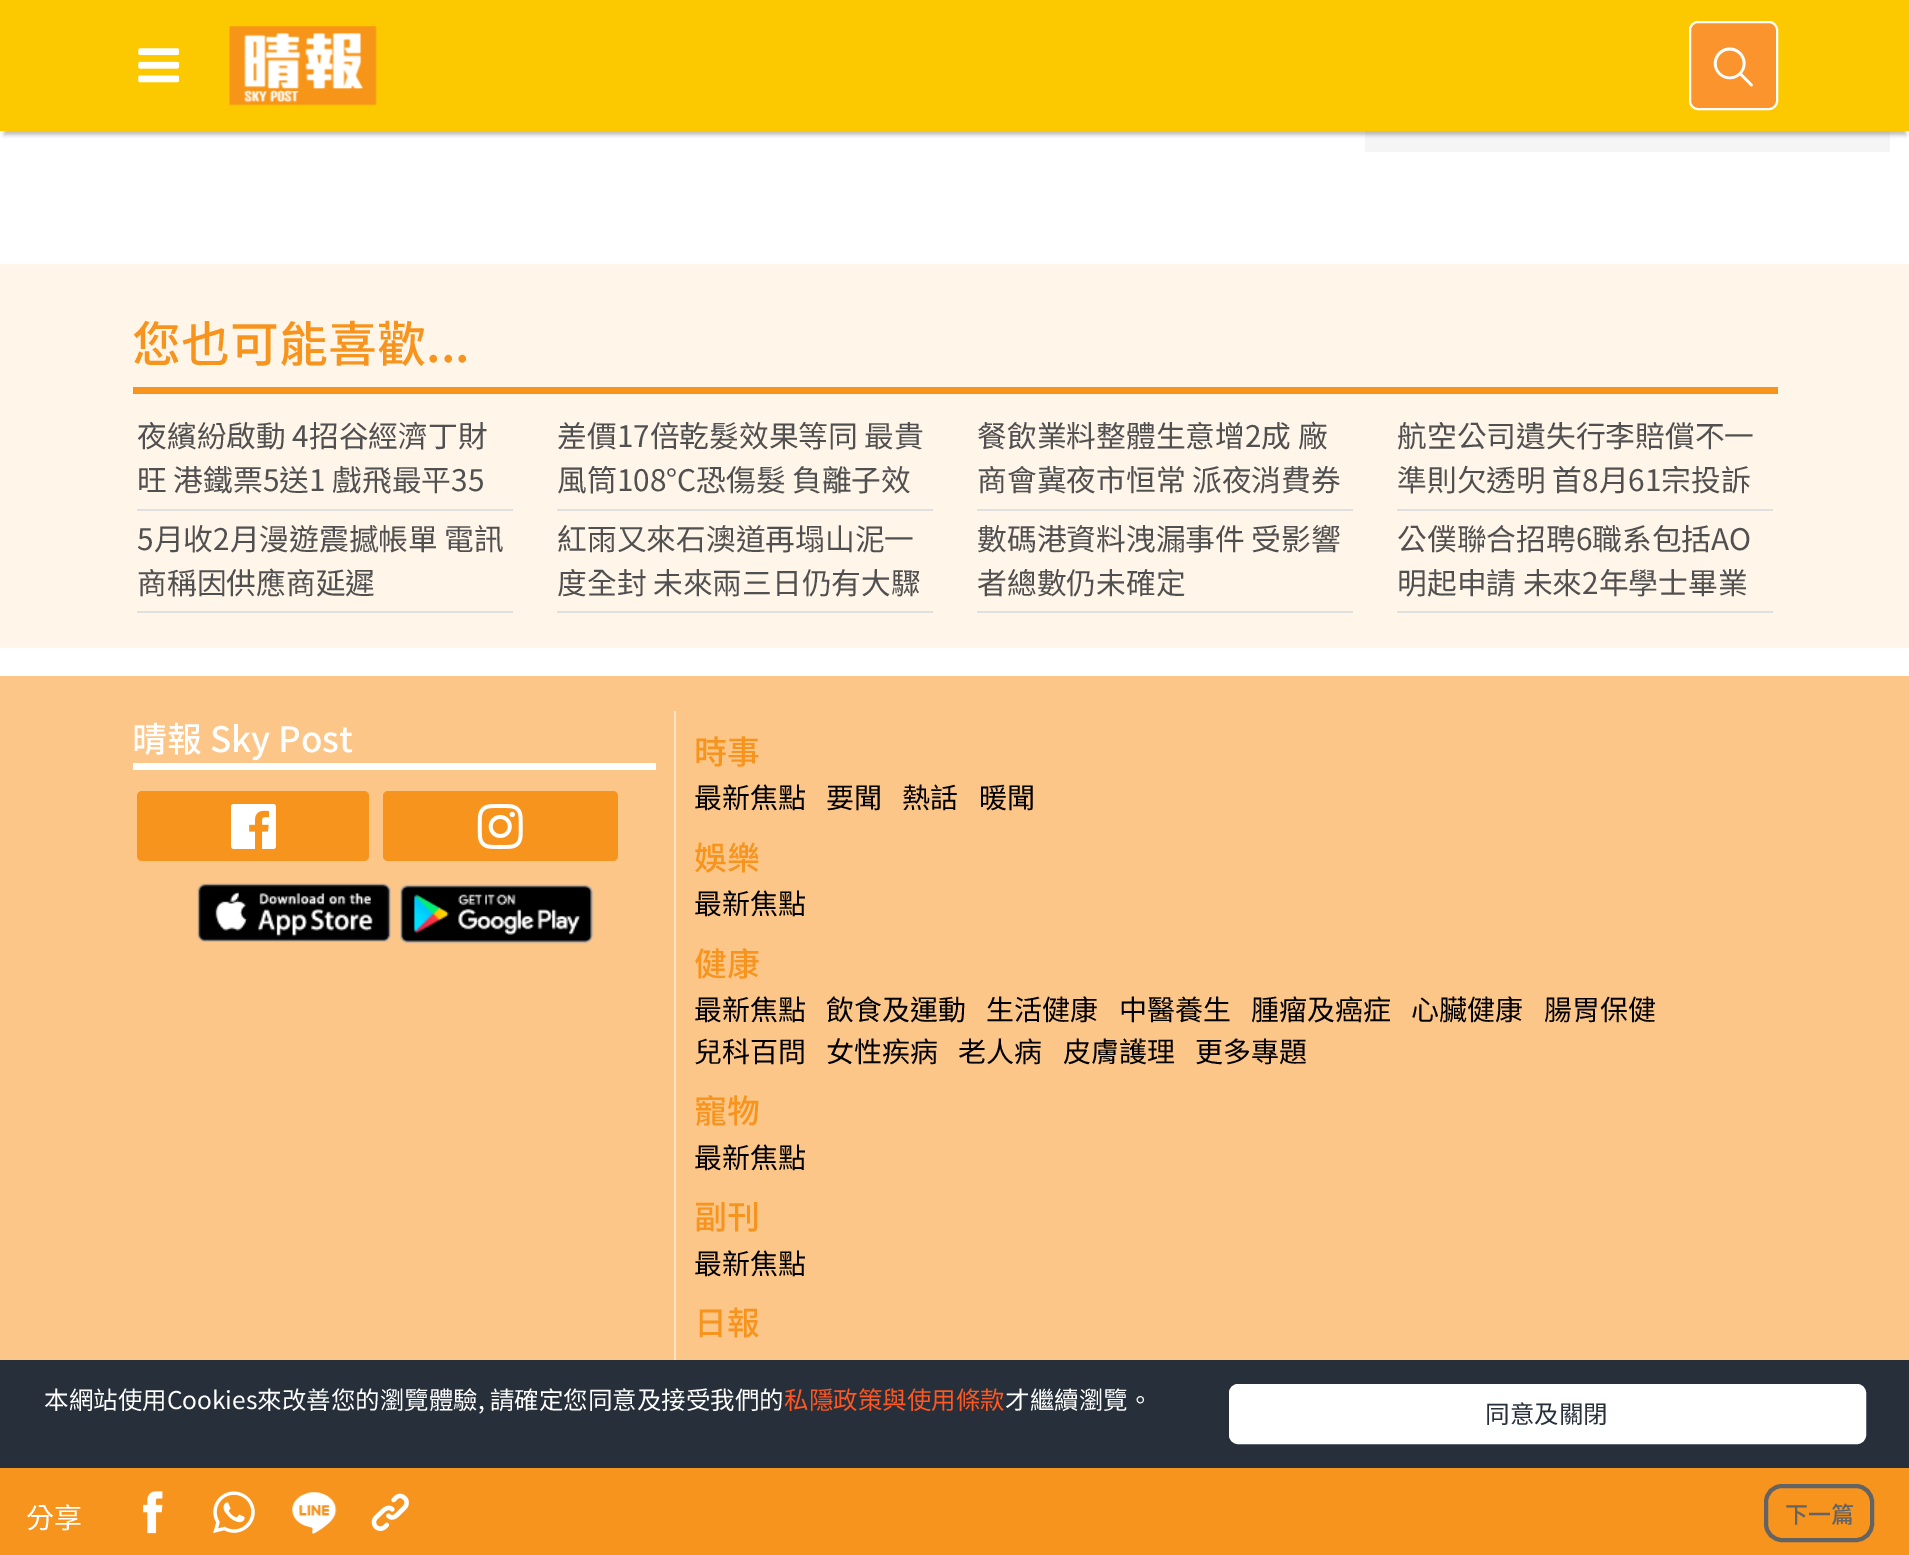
%!PS
<< /PageSize [1909 1555] /PageUsesTransparency true >> setpagedevice
/f/fill load def
/s/stroke load def
/q/gsave load def
/Q_/grestore load def
/w/setlinewidth load def
/C { dup -16 bitshift 255 div exch dup -8 bitshift 255 and 255 div exch 255 and 255 div setrgbcolor } def
/F { [ exch dup neg 0 0 3 -1 roll 0 0 ] selectfont } def
/T { moveto show } def
/R { rectfill } def
/A { dup .setfillconstantalpha .setstrokeconstantalpha } def
/Q { 5 dict begin { /r /h /w /y /x } { exch def } forall
  x r add y moveto x w add y 2 copy h add r arct x w add y h add x 1 index r arct
  x y h add x y r arct x y 2 copy exch w add exch r arct closepath end } def
/S { 12 dict begin { /a /b /q /h /w /y /x } { exch def } forall gsave /was 0 def
  9 -2 -9 { dup b mul 4 div /e exch def 1 sub .425 mul 2.718 exch exp 1 add a .99 .min exch div /now exch def
    1 1 now sub 1 was sub div sub A /was now def
    w h .min e 2 mul add 0 gt { x e sub y e sub w e 2 mul add h e 2 mul add
      q e add b .6 mul add w h .min 2 div e add .min 0 .max Q fill } if } for grestore end } def
/I { 5 dict begin { /h /w /y /x /name } { exch def } forall
  gsave x y translate w h scale
  w h 8 [w 0 0 h 0 0] name (r) file false 3 colorimage grestore end } def
0 .pushpdf14devicefilter
0 1555 translate 1 -1 scale
4 setmiterlimit
16#FFFFFF C
0 0 1909 1555 R
16#F5F5F5 C
1365 131 525 21 R
16#000000 C
4 11 1902 124 0 2 .25 S
16#FCC800 C
0 0 1909 131 R
(1.rgb) 138 48 42 35 I
(2.rgb) 229 26 148 80 I
16#FC942E C
1690 22 87 87 8 Q q f Q_
16#FFFFFF C
2 w
s
(3.rgb) 1713 47 40 40 I
16#FFF5E9 C
0 264 1909 384 R
16#F7941E C
133 387 1645 7 R
/NotoSansTC-Medium 49 F
(您也可能喜歡...) 132 362 T
16#E0E0E0 C
137 509 376 2 R
/NotoSansTC-Thin 29.75 F
16#505050 C
(夜繽紛啟動 4招谷經濟丁財) 137 447 T
(旺 港鐵票5送1 戲飛最平35) 137 491 T
16#E0E0E0 C
557 509 376 2 R
16#505050 C
(差價17倍乾髮效果等同 最貴) 557 447 T
(風筒108°C恐傷髮 負離子效) 557 491 T
16#E0E0E0 C
977 509 376 2 R
16#505050 C
(餐飲業料整體生意增2成 廠) 977 447 T
(商會冀夜市恒常 派夜消費券) 977 491 T
16#E0E0E0 C
1397 509 376 2 R
16#505050 C
(航空公司遺失行李賠償不一) 1397 447 T
(準則欠透明 首8月61宗投訴) 1397 491 T
16#E0E0E0 C
137 611 376 2 R
16#505050 C
(5月收2月漫遊震撼帳單 電訊) 137 550 T
(商稱因供應商延遲) 137 594 T
16#E0E0E0 C
557 611 376 2 R
16#505050 C
(紅雨又來石澳道再塌山泥一) 557 550 T
(度全封 未來兩三日仍有大驟) 557 594 T
16#E0E0E0 C
977 611 376 2 R
16#505050 C
(數碼港資料洩漏事件 受影響) 977 550 T
(者總數仍未確定) 977 594 T
16#E0E0E0 C
1397 611 376 2 R
16#505050 C
(公僕聯合招聘6職系包括AO) 1397 550 T
(明起申請 未來2年學士畢業) 1397 594 T
16#FDC689 C
0 676 1909 684 R
16#FFFFFF C
133 763 523 7 R
/NotoSansTC-Medium 35 F
(晴報 Sky Post) 132 752 T
16#F7941E C
137 791 232 70 5 Q f
(4.rgb) 231 804 45 45 I
383 791 235 70 5 Q f
(5.rgb) 477 804 46 45 I
(6.rgb) 197 883 194 59 I
(7.rgb) 400 884 194 60 I
16#FEE3C4 C
674 711 2 649 R
/NotoSansTC-Medium 33 F
16#F7941E C
(時事) 694 764 T
/NotoSansTC-Thin 28 F
16#000000 C
(最新焦點) 694 808 T
(要聞) 826 808 T
(熱話) 902 808 T
(暖聞) 979 808 T
/NotoSansTC-Medium 33 F
16#F7941E C
(娛樂) 694 870 T
/NotoSansTC-Thin 28 F
16#000000 C
(最新焦點) 694 914 T
/NotoSansTC-Medium 33 F
16#F7941E C
(健康) 694 976 T
/NotoSansTC-Thin 28 F
16#000000 C
(最新焦點) 694 1020 T
(飲食及運動) 826 1020 T
(生活健康) 986 1020 T
(中醫養生) 1119 1020 T
(腫瘤及癌症) 1251 1020 T
(心臟健康) 1411 1020 T
(腸胃保健) 1544 1020 T
(兒科百問) 694 1062 T
(女性疾病) 826 1062 T
(老人病) 958 1062 T
(皮膚護理) 1063 1062 T
(更多專題) 1195 1062 T
/NotoSansTC-Medium 33 F
16#F7941E C
(寵物) 694 1123 T
/NotoSansTC-Thin 28 F
16#000000 C
(最新焦點) 694 1168 T
/NotoSansTC-Medium 33 F
16#F7941E C
(副刊) 694 1229 T
/NotoSansTC-Thin 28 F
16#000000 C
(最新焦點) 694 1274 T
/NotoSansTC-Medium 33 F
16#F7941E C
(日報) 694 1335 T
0 1468 1909 87 R
/NotoSansTC-Thin 28 F
16#FFFFFF C
(分享) 26 1528 T
(8.rgb) 143 1491 20 43 I
(9.rgb) 213 1491 42 43 I
(10.rgb) 292 1492 45 42 I
(11.rgb) 371 1493 38 38 I
16#636363 C
4 w
1766 1486 106 54 16 Q s
/NotoSansTC-Medium 23 F
(下一篇) 1785 1523 T
16#262F3A C
0 1360 1909 108 R
/NotoSansTC-Thin 24.5 F
16#FFFFFF C
(本網站使用Cookies來改善您的瀏覽體驗, 請確定您同意及接受我們的) 44 1409 T
16#FF5722 C
(私隱政策與使用條款) 784 1409 T
16#FFFFFF C
(才繼續瀏覽。) 1005 1409 T
1230 1385 635 58 8 Q q f Q_
2 w
s
16#262F3A C
(同意及關閉) 1485 1423 T
.poppdf14devicefilter showpage
